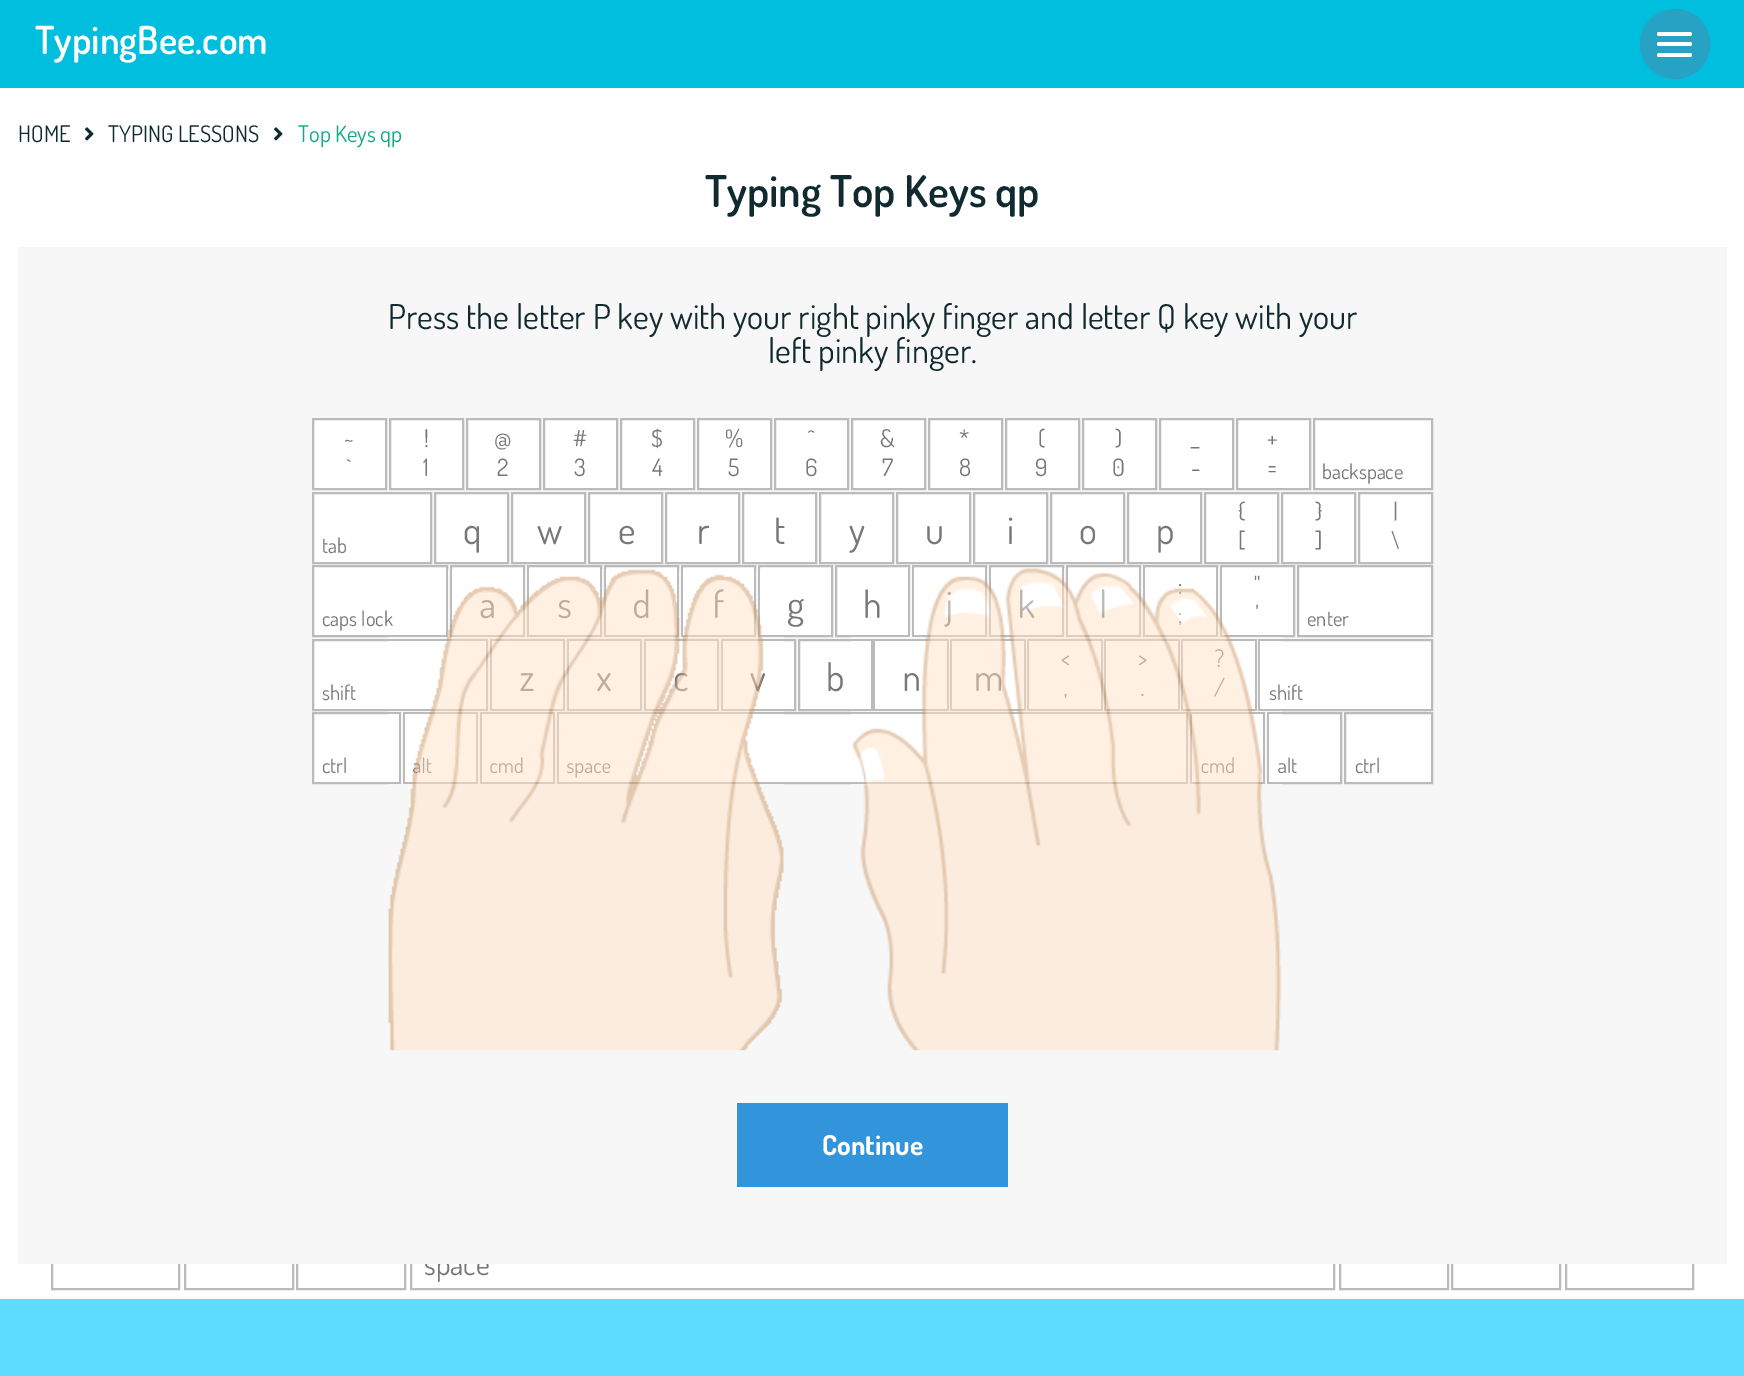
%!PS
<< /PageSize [1744 1376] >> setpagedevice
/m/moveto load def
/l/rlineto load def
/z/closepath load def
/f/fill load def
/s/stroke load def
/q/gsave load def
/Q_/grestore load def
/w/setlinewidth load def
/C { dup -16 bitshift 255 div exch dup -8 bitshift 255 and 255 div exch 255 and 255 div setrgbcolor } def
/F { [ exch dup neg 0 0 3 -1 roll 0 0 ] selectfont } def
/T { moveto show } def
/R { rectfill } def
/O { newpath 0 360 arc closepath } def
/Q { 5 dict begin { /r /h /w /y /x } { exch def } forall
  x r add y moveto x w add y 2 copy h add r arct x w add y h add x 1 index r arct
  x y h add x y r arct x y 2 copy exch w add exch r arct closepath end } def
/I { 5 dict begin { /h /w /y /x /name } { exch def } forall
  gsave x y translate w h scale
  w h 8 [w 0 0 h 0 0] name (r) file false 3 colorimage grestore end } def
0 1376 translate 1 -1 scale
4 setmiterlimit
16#FFFFFF C
0 0 1744 1376 R
16#00BEDD C
0 0 1744 88 R
/Dosis-SemiBold 38.5 F
16#FFFFFF C
(TypingBee.com) 35 54 T
16#27A2C5 C
1675 44 35 O f
16#FFFFFF C
1657 32 35 4 2 Q f
1657 42 35 4 2 Q f
1657 53 35 4 2 Q f
/Dosis-Regular 22.75 F
16#102A30 C
(HOME) 18 142 T
(1.rgb) 85 127 9 14 I
(TYPING LESSONS) 108 142 T
(1.rgb) 274 127 9 14 I
16#10A98A C
(Top Keys qp) 298 142 T
/Dosis-SemiBold 43.75 F
16#102A30 C
(Typing Top Keys qp) 705 207 T
16#BBBBBB C
2 w
52 1186 127 103 rectstroke
185 1186 108 103 rectstroke
297 1186 108 103 rectstroke
411 1186 923 103 rectstroke
/Dosis-Regular 30 F
16#777777 C
(space) 424 1275 T
16#BBBBBB C
1340 1186 108 103 rectstroke
1452 1186 108 103 rectstroke
1566 1186 127 103 rectstroke
16#F7F7F7 C
18 247 1709 1017 R
/Dosis-Regular 34.2 F
16#102A30 C
(Press the letter P key with your right pinky finger and letter Q key with your) 388 329 T
(left pinky finger.) 768 363 T
16#FFFFFF C
313 419 m 73 0 l 0 70 l -73 0 l z q f Q_
16#BBBBBB C
s
/Dosis-Regular 24 F
16#777777 C
(~) 344 447 T
(`) 347 476 T
16#FFFFFF C
390 419 m 73 0 l 0 70 l -73 0 l z q f Q_
16#BBBBBB C
s
16#777777 C
(!) 424 447 T
(1) 423 476 T
16#FFFFFF C
467 419 m 73 0 l 0 70 l -73 0 l z q f Q_
16#BBBBBB C
s
16#777777 C
(@) 494 447 T
(2) 497 476 T
16#FFFFFF C
544 419 m 73 0 l 0 70 l -73 0 l z q f Q_
16#BBBBBB C
s
16#777777 C
(#) 573 447 T
(3) 574 476 T
16#FFFFFF C
621 419 m 73 0 l 0 70 l -73 0 l z q f Q_
16#BBBBBB C
s
16#777777 C
($) 651 447 T
(4) 652 476 T
16#FFFFFF C
698 419 m 73 0 l 0 70 l -73 0 l z q f Q_
16#BBBBBB C
s
16#777777 C
(%) 725 447 T
(5) 728 476 T
16#FFFFFF C
775 419 m 73 0 l 0 70 l -73 0 l z q f Q_
16#BBBBBB C
s
16#777777 C
(^) 808 447 T
(6) 805 476 T
16#FFFFFF C
852 419 m 73 0 l 0 70 l -73 0 l z q f Q_
16#BBBBBB C
s
16#777777 C
(&) 880 447 T
(7) 882 476 T
16#FFFFFF C
929 419 m 73 0 l 0 70 l -73 0 l z q f Q_
16#BBBBBB C
s
16#777777 C
(*) 959 447 T
(8) 959 476 T
16#FFFFFF C
1006 419 m 73 0 l 0 70 l -73 0 l z q f Q_
16#BBBBBB C
s
16#777777 C
(\() 1038 447 T
(9) 1035 476 T
16#FFFFFF C
1083 419 m 73 0 l 0 70 l -73 0 l z q f Q_
16#BBBBBB C
s
16#777777 C
(\)) 1115 447 T
(0) 1112 476 T
16#FFFFFF C
1160 419 m 73 0 l 0 70 l -73 0 l z q f Q_
16#BBBBBB C
s
16#777777 C
(_) 1191 447 T
(-) 1191 476 T
16#FFFFFF C
1237 419 m 73 0 l 0 70 l -73 0 l z q f Q_
16#BBBBBB C
s
16#777777 C
(+) 1267 447 T
(=) 1267 476 T
16#FFFFFF C
1314 419 m 118 0 l 0 70 l -118 0 l z q f Q_
16#BBBBBB C
s
/Dosis-Regular 20.5 F
16#777777 C
(backspace) 1322 479 T
16#FFFFFF C
313 493 m 118 0 l 0 70 l -118 0 l z q f Q_
16#BBBBBB C
s
16#777777 C
(tab) 322 553 T
16#FFFFFF C
435 493 m 73 0 l 0 70 l -73 0 l z q f Q_
16#BBBBBB C
s
/Dosis-Regular 38 F
16#777777 C
(q) 463 544 T
16#FFFFFF C
512 493 m 73 0 l 0 70 l -73 0 l z q f Q_
16#BBBBBB C
s
16#777777 C
(w) 537 544 T
16#FFFFFF C
589 493 m 73 0 l 0 70 l -73 0 l z q f Q_
16#BBBBBB C
s
16#777777 C
(e) 618 544 T
16#FFFFFF C
666 493 m 73 0 l 0 70 l -73 0 l z q f Q_
16#BBBBBB C
s
16#777777 C
(r) 697 544 T
16#FFFFFF C
743 493 m 73 0 l 0 70 l -73 0 l z q f Q_
16#BBBBBB C
s
16#777777 C
(t) 774 544 T
16#FFFFFF C
820 493 m 73 0 l 0 70 l -73 0 l z q f Q_
16#BBBBBB C
s
16#777777 C
(y) 849 544 T
16#FFFFFF C
897 493 m 73 0 l 0 70 l -73 0 l z q f Q_
16#BBBBBB C
s
16#777777 C
(u) 925 544 T
16#FFFFFF C
974 493 m 73 0 l 0 70 l -73 0 l z q f Q_
16#BBBBBB C
s
16#777777 C
(i) 1007 544 T
16#FFFFFF C
1051 493 m 73 0 l 0 70 l -73 0 l z q f Q_
16#BBBBBB C
s
16#777777 C
(o) 1079 544 T
16#FFFFFF C
1128 493 m 73 0 l 0 70 l -73 0 l z q f Q_
16#BBBBBB C
s
16#777777 C
(p) 1156 544 T
16#FFFFFF C
1205 493 m 73 0 l 0 70 l -73 0 l z q f Q_
16#BBBBBB C
s
/Dosis-Regular 24 F
16#777777 C
({) 1238 520 T
([) 1238 549 T
16#FFFFFF C
1282 493 m 73 0 l 0 70 l -73 0 l z q f Q_
16#BBBBBB C
s
16#777777 C
(}) 1315 520 T
(]) 1315 549 T
16#FFFFFF C
1359 493 m 73 0 l 0 70 l -73 0 l z q f Q_
16#BBBBBB C
s
16#777777 C
(|) 1393 520 T
(\\) 1391 549 T
16#FFFFFF C
313 566 m 134 0 l 0 70 l -134 0 l z q f Q_
16#BBBBBB C
s
/Dosis-Regular 20.5 F
16#777777 C
(caps lock) 322 626 T
16#FFFFFF C
451 566 m 73 0 l 0 70 l -73 0 l z q f Q_
16#BBBBBB C
s
/Dosis-Regular 38 F
16#777777 C
(a) 479 618 T
16#FFFFFF C
528 566 m 73 0 l 0 70 l -73 0 l z q f Q_
16#BBBBBB C
s
16#777777 C
(s) 557 618 T
16#FFFFFF C
605 566 m 73 0 l 0 70 l -73 0 l z q f Q_
16#BBBBBB C
s
16#777777 C
(d) 632 618 T
16#FFFFFF C
682 566 m 73 0 l 0 70 l -73 0 l z q f Q_
16#BBBBBB C
s
16#777777 C
(f) 713 618 T
16#FFFFFF C
759 566 m 73 0 l 0 70 l -73 0 l z q f Q_
16#BBBBBB C
s
16#777777 C
(g) 787 618 T
16#FFFFFF C
836 566 m 73 0 l 0 70 l -73 0 l z q f Q_
16#BBBBBB C
s
16#777777 C
(h) 863 618 T
16#FFFFFF C
913 566 m 73 0 l 0 70 l -73 0 l z q f Q_
16#BBBBBB C
s
16#777777 C
(j) 946 618 T
16#FFFFFF C
990 566 m 73 0 l 0 70 l -73 0 l z q f Q_
16#BBBBBB C
s
16#777777 C
(k) 1018 618 T
16#FFFFFF C
1067 566 m 73 0 l 0 70 l -73 0 l z q f Q_
16#BBBBBB C
s
16#777777 C
(l) 1099 618 T
16#FFFFFF C
1144 566 m 73 0 l 0 70 l -73 0 l z q f Q_
16#BBBBBB C
s
/Dosis-Regular 24 F
16#777777 C
(:) 1178 594 T
(;) 1178 623 T
16#FFFFFF C
1221 566 m 73 0 l 0 70 l -73 0 l z q f Q_
16#BBBBBB C
s
16#777777 C
(") 1254 594 T
(') 1255 623 T
16#FFFFFF C
1298 566 m 134 0 l 0 70 l -134 0 l z q f Q_
16#BBBBBB C
s
/Dosis-Regular 20.5 F
16#777777 C
(enter) 1307 626 T
16#FFFFFF C
313 640 m 174 0 l 0 70 l -174 0 l z q f Q_
16#BBBBBB C
s
16#777777 C
(shift) 322 700 T
16#FFFFFF C
491 640 m 73 0 l 0 70 l -73 0 l z q f Q_
16#BBBBBB C
s
/Dosis-Regular 38 F
16#777777 C
(z) 519 691 T
16#FFFFFF C
568 640 m 73 0 l 0 70 l -73 0 l z q f Q_
16#BBBBBB C
s
16#777777 C
(x) 596 691 T
16#FFFFFF C
645 640 m 73 0 l 0 70 l -73 0 l z q f Q_
16#BBBBBB C
s
16#777777 C
(c) 673 691 T
16#FFFFFF C
722 640 m 73 0 l 0 70 l -73 0 l z q f Q_
16#BBBBBB C
s
16#777777 C
(v) 750 691 T
16#FFFFFF C
799 640 m 73 0 l 0 70 l -73 0 l z q f Q_
16#BBBBBB C
s
16#777777 C
(b) 826 691 T
16#FFFFFF C
874 640 m 74 0 l 0 70 l -74 0 l z q f Q_
16#BBBBBB C
s
16#777777 C
(n) 902 691 T
16#FFFFFF C
951 640 m 74 0 l 0 70 l -74 0 l z q f Q_
16#BBBBBB C
s
16#777777 C
(m) 974 691 T
16#FFFFFF C
1028 640 m 74 0 l 0 70 l -74 0 l z q f Q_
16#BBBBBB C
s
/Dosis-Regular 24 F
16#777777 C
(<) 1061 667 T
(,) 1064 696 T
16#FFFFFF C
1105 640 m 74 0 l 0 70 l -74 0 l z q f Q_
16#BBBBBB C
s
16#777777 C
(>) 1138 667 T
(.) 1140 696 T
16#FFFFFF C
1182 640 m 74 0 l 0 70 l -74 0 l z q f Q_
16#BBBBBB C
s
16#777777 C
(?) 1215 667 T
(/) 1214 696 T
16#FFFFFF C
1259 640 m 173 0 l 0 70 l -173 0 l z q f Q_
16#BBBBBB C
s
/Dosis-Regular 20.5 F
16#777777 C
(shift) 1269 700 T
16#FFFFFF C
313 713 m 87 0 l 0 70 l -87 0 l z q f Q_
16#BBBBBB C
s
16#777777 C
(ctrl) 322 773 T
16#FFFFFF C
404 713 m 73 0 l 0 70 l -73 0 l z q f Q_
16#BBBBBB C
s
16#777777 C
(alt) 412 773 T
16#FFFFFF C
481 713 m 73 0 l 0 70 l -73 0 l z q f Q_
16#BBBBBB C
s
16#777777 C
(cmd) 489 773 T
16#FFFFFF C
558 713 m 629 0 l 0 70 l -629 0 l z q f Q_
16#BBBBBB C
s
16#777777 C
(space) 566 773 T
16#FFFFFF C
1191 713 m 73 0 l 0 70 l -73 0 l z q f Q_
16#BBBBBB C
s
16#777777 C
(cmd) 1201 773 T
16#FFFFFF C
1268 713 m 73 0 l 0 70 l -73 0 l z q f Q_
16#BBBBBB C
s
16#777777 C
(alt) 1278 773 T
16#FFFFFF C
1345 713 m 87 0 l 0 70 l -87 0 l z q f Q_
16#BBBBBB C
s
16#777777 C
(ctrl) 1355 773 T
(2.rgb) 388 569 396 482 I
(3.rgb) 851 568 431 483 I
16#3295DB C
737 1103 271 84 R
/Dosis-Bold 27.5 F
16#FFFFFF C
(Continue) 822 1155 T
16#5DDCFF C
0 1299 1744 77 R
showpage
